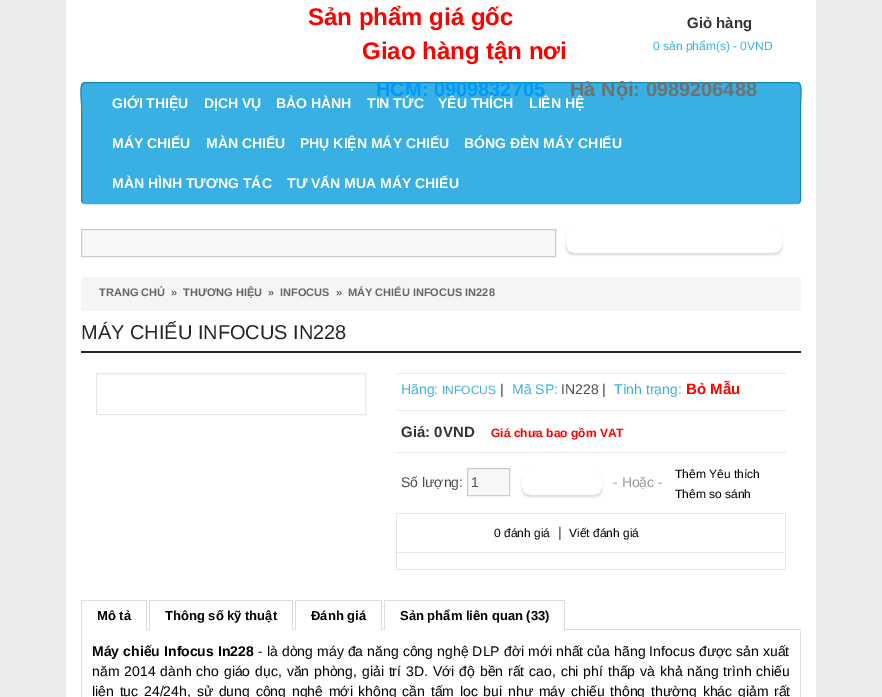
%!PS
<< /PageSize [882 697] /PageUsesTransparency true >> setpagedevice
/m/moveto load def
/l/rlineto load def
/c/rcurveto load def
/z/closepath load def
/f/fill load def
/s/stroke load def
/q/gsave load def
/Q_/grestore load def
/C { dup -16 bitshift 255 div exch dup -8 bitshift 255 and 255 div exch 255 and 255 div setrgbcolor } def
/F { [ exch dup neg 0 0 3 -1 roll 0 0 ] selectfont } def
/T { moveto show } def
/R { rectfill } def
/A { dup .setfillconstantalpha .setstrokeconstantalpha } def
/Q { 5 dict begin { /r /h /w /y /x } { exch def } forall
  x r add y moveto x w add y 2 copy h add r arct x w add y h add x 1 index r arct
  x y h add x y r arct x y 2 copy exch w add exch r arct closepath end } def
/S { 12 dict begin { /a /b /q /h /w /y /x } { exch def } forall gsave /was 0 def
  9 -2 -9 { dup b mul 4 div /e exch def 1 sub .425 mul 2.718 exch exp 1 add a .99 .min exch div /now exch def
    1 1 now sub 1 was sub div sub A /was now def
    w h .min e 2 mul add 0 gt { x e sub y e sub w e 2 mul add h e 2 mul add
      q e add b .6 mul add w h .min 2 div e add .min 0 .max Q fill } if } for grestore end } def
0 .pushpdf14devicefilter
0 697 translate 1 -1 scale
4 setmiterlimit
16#EBEBEB C
0 0 882 697 R
16#FFFFFF C
66 0 750 697 R
/LiberationSans-Bold 24 F
16#FF0000 C
(Sản phẩm giá gốc) 308 25 T
(Giao hàng tận nơi) 362 59 T
/LiberationSans-Bold 15 F
16#333333 C
(Giỏ hàng) 687 28 T
/LiberationSans-Regular 12 F
16#38B0E3 C
(0 sản phẩm\(s\) - 0VND) 653 50 T
81 82 720 122 4 Q f
799.5 202.5 m -.5 .5 -1.5 1 -2.5 1 c -712 0 l -1 0 -2 -.5 -2.5 -1 c s
16#1A86B5 C
82.5 202.5 m -1 -2.5 l 0 -95 l 0 -7 -3 -22.5 3.5 -22.5 c 712 0 l 6.5 0 3.5 15.5 3.5 22.5 c 0 95 l -1 2.5 l s
/LiberationSans-Bold 20 F
16#0099FF C
(HCM: 0909832705) 376 96 T
16#71706E C
(Hà Nội: 0989206488) 570 96 T
/LiberationSans-Bold 14 F
16#FFFFFF C
(GIỚI THIỆU) 112 108 T
(DỊCH VỤ) 204 108 T
(BẢO HÀNH) 276 108 T
(TIN TỨC) 367 108 T
(YÊU THÍCH) 438 108 T
(LIÊN HỆ) 529 108 T
(MÁY CHIẾU) 112 148 T
(MÀN CHIẾU) 206 148 T
(PHỤ KIỆN MÁY CHIẾU) 300 148 T
(BÓNG ĐÈN MÁY CHIẾU) 464 148 T
(MÀN HÌNH TƯƠNG TÁC) 112 188 T
(TƯ VẤN MUA MÁY CHIẾU) 287 188 T
16#F8F8F8 C
81.5 229.5 m 474 0 l 0 27 l -474 0 l z q f Q_
16#CCCCCC C
s
q
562 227 m 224 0 l 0 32 l -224 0 l z 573 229 m 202 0 l 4 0 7 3 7 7 c 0 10 l 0 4 -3 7 -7 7 c -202 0 l -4 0 -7 -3 -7 -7 c 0 -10 l 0 -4 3 -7 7 -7 c z eoclip newpath
16#DDDDDD C
566 231 216 24 7 1 1 S
Q_
16#F5F5F5 C
81 277 720 34 4 Q f
/LiberationSans-Bold 11 F
16#666666 C
(TRANG CHỦ) 99 296 T
(») 171 296 T
(THƯƠNG HIỆU) 183 296 T
(») 268 296 T
(INFOCUS) 280 296 T
(») 336 296 T
(MÁY CHIẾU INFOCUS IN228) 348 296 T
16#252525 C
81 351 720 2 R
/LiberationSans-Regular 20 F
(MÁY CHIẾU INFOCUS IN228) 81 339 T
16#E7E7E7 C
96.5 373.5 269 41 rectstroke
396 373 390 1 R
396 410 390 1 R
/LiberationSans-Regular 14 F
16#38B0E3 C
(Hãng:) 401 394 T
/LiberationSans-Regular 12 F
(INFOCUS) 442 394 T
/LiberationSans-Regular 14 F
16#4D4D4D C
(|) 500 394 T
16#38B0E3 C
(Mã SP:) 512 394 T
16#4D4D4D C
(IN228 |) 561 394 T
16#38B0E3 C
(Tình trạng:) 614 394 T
/LiberationSans-Bold 15 F
16#FF0000 C
(Bỏ Mẫu) 686 394 T
16#E7E7E7 C
396 452 390 1 R
16#333333 C
(Giá: 0VND) 401 437 T
/LiberationSans-Bold 12 F
16#FF0000 C
(Giá chưa bao gồm VAT) 491 437 T
/LiberationSans-Regular 14 F
16#4D4D4D C
(Số lượng:) 401 487 T
16#F8F8F8 C
467.5 468.5 m 42 0 l 0 27 l -42 0 l z q f Q_
16#CCCCCC C
s
16#4D4D4D C
(1) 471 487 T
q
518 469 m 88 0 l 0 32 l -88 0 l z 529 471 m 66 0 l 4 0 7 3 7 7 c 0 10 l 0 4 -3 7 -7 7 c -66 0 l -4 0 -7 -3 -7 -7 c 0 -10 l 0 -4 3 -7 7 -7 c z eoclip newpath
16#DDDDDD C
522 473 80 24 7 1 1 S
Q_
16#999999 C
(- Hoặc -) 613 487 T
/LiberationSans-Regular 12 F
16#000000 C
(Thêm Yêu thích) 675 478 T
(Thêm so sánh) 675 498 T
16#E7E7E7 C
396 513 390 1 R
785 513 1 57 R
396 513 1 57 R
397 552 388 1 R
16#000000 C
(0 đánh giá) 494 537 T
/LiberationSans-Regular 14 F
16#4D4D4D C
(|) 558 537 T
/LiberationSans-Regular 12 F
16#000000 C
(Viết đánh giá) 569 537 T
16#E7E7E7 C
397 569 388 1 R
16#DDDDDD C
147 629 654 1 R
81 600 66 1 R
146 600 1 31 R
81 600 1 97 R
/LiberationSans-Bold 13 F
16#000000 C
(Mô tả) 97 620 T
16#FFFFFF C
150 629 142 1 R
16#DDDDDD C
149 600 144 1 R
292 600 1 30 R
149 600 1 30 R
16#000000 C
(Thông số kỹ thuật) 165 620 T
16#FFFFFF C
296 629 85 1 R
16#DDDDDD C
295 600 87 1 R
381 600 1 30 R
295 600 1 30 R
16#000000 C
(Đánh giá) 311 620 T
16#FFFFFF C
385 629 179 1 R
16#DDDDDD C
384 600 181 1 R
564 600 1 30 R
384 600 1 30 R
16#000000 C
(Sản phẩm liên quan \(33\)) 400 620 T
16#DDDDDD C
800 631 1 66 R
/LiberationSans-Bold 14 F
16#000000 C
92 656 m .25 0 32 (Máy chiếu Infocus In228) widthshow
/LiberationSans-Regular 14 F
258 656 m .25 0 32 (- là dòng máy đa năng công nghệ DLP đời mới nhất của hãng Infocus được sản xuất) widthshow
92 676 m 1.05 0 32 (năm 2014 dành cho giáo dục, văn phòng, giải trí 3D. Với độ bền rất cao, chi phí thấp và khả năng trình chiếu) widthshow
92 696 m 1.9 0 32 (liên tục 24/24h, sử dụng công nghệ mới không cần tấm lọc bụi như máy chiếu thông thường khác giảm rất) widthshow
.poppdf14devicefilter showpage
